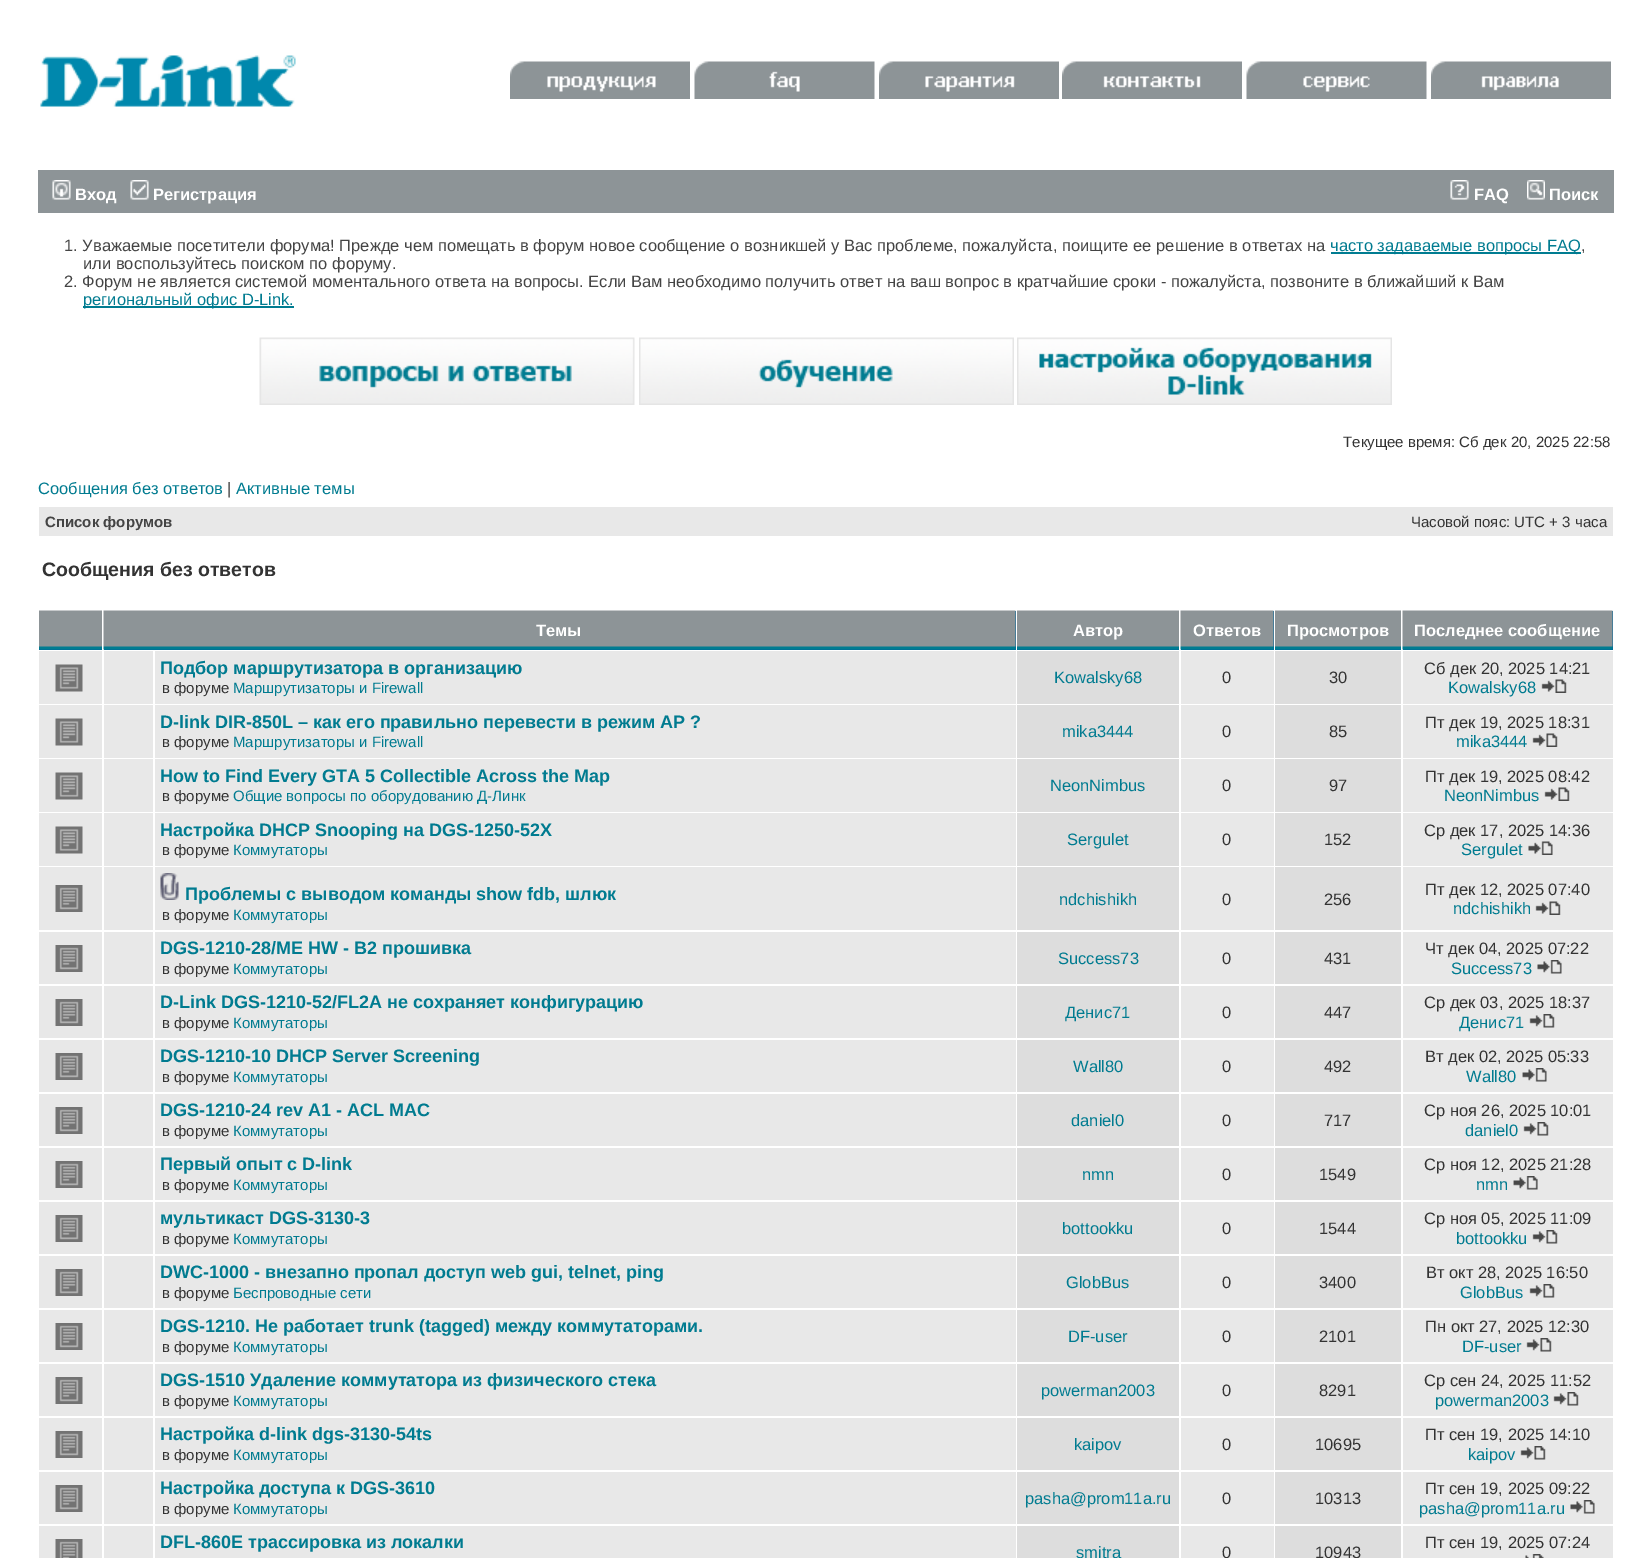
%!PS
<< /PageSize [1651 1558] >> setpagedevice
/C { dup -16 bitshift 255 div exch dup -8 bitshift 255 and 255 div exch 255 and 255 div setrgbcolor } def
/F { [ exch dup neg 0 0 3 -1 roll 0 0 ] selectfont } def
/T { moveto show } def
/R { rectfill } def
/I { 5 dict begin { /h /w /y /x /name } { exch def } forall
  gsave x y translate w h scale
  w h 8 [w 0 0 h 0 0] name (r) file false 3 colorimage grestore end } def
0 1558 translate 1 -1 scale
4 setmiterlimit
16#FFFFFF C
0 0 1651 1558 R
(1.rgb) 40 55 256 52 I
(2.rgb) 510 61 180 38 I
(3.rgb) 694 61 181 38 I
(4.rgb) 879 61 180 38 I
(5.rgb) 1062 61 180 38 I
(6.rgb) 1246 61 181 38 I
(7.rgb) 1431 61 180 38 I
16#8D9497 C
38 170 1576 43 R
(8.rgb) 52 180 19 20 I
/LiberationSans-Bold 16.5 F
16#FFFFFF C
(Вход) 75 200 T
(9.rgb) 130 180 19 20 I
(Регистрация) 153 200 T
(10.rgb) 1450 180 19 20 I
(FAQ) 1474 200 T
(11.rgb) 1527 180 18 20 I
(Поиск) 1549 200 T
/LiberationSans-Regular 16.5 F
16#444444 C
(1. Уважаемые посетители форума! Прежде чем помещать в форум новое сообщение о возникшей у Вас проблеме, пожалуйста, поищите ее решение в ответах на) 64 251 T
16#007C91 C
1331 252 250 2 R
16#007B90 C
(часто задаваемые вопросы FAQ) 1330 251 T
16#444444 C
(,) 1581 251 T
(или воспользуйтесь поиском по форуму.) 83 269 T
(2. Форум не является системой моментального ответа на вопросы. Если Вам необходимо получить ответ на ваш вопрос в кратчайшие сроки - пожалуйста, позвоните в ближайший к Вам) 64 287 T
16#007C91 C
83 306 211 2 R
16#007B90 C
(региональный офис D-Link.) 83 305 T
(12.rgb) 259 337 376 68 I
(13.rgb) 639 337 375 68 I
(14.rgb) 1017 337 375 68 I
/LiberationSans-Regular 15 F
16#333333 C
(Текущее время: Сб дек 20, 2025 22:58) 1343 447 T
/LiberationSans-Regular 16.5 F
16#007B90 C
(Сообщения без ответов) 38 494 T
16#333333 C
(|) 227 494 T
16#007B90 C
(Активные темы) 236 494 T
16#E8E8E8 C
39 507 1574 29 R
/LiberationSans-Bold 15 F
16#444444 C
(Список форумов) 45 527 T
/LiberationSans-Regular 15 F
16#333333 C
(Часовой пояс: UTC + 3 часа) 1411 527 T
/LiberationSans-Bold 19.5 F
(Сообщения без ответов) 42 576 T
16#006699 C
39 649 63 1 R
(15.rgb) 39 610 63 40 I
104 611 912 39 R
(16.rgb) 103 610 913 40 I
/LiberationSans-Bold 16.5 F
16#FFFFFF C
(Темы) 536 636 T
16#006699 C
1017 649 162 1 R
(17.rgb) 1017 610 162 40 I
16#FFFFFF C
(Автор) 1073 636 T
16#006699 C
1181 611 93 39 R
(18.rgb) 1180 610 94 40 I
16#FFFFFF C
(Ответов) 1193 636 T
16#006699 C
1275 649 126 1 R
(19.rgb) 1275 610 126 40 I
16#FFFFFF C
(Просмотров) 1287 636 T
16#006699 C
1403 611 210 39 R
(20.rgb) 1402 610 211 40 I
16#FFFFFF C
(Последнее сообщение) 1414 636 T
16#E8E8E8 C
39 651 63 53 R
(21.rgb) 55 664 28 28 I
104 651 49 53 R
155 651 861 53 R
/LiberationSans-Bold 18 F
16#007B90 C
(Подбор маршрутизатора в организацию) 160 674 T
/LiberationSans-Regular 15 F
16#333333 C
(в форуме) 162 693 T
16#007B90 C
(Маршрутизаторы и Firewall) 233 693 T
16#DDDDDD C
1017 651 162 53 R
/LiberationSans-Regular 16.5 F
16#007B90 C
(Kowalsky68) 1054 683 T
16#E8E8E8 C
1181 651 93 53 R
16#333333 C
(0) 1222 683 T
16#DDDDDD C
1275 651 126 53 R
16#333333 C
(30) 1329 683 T
16#E8E8E8 C
1403 651 210 53 R
16#333333 C
(Сб дек 20, 2025 14:21) 1424 674 T
16#007B90 C
(Kowalsky68) 1448 693 T
(22.rgb) 1541 679 26 14 I
16#E8E8E8 C
39 705 63 53 R
(21.rgb) 55 718 28 28 I
104 705 49 53 R
155 705 861 53 R
/LiberationSans-Bold 18 F
16#007B90 C
(D-link DIR-850L – как его правильно перевести в режим AP ?) 160 728 T
/LiberationSans-Regular 15 F
16#333333 C
(в форуме) 162 747 T
16#007B90 C
(Маршрутизаторы и Firewall) 233 747 T
16#DDDDDD C
1017 705 162 53 R
/LiberationSans-Regular 16.5 F
16#007B90 C
(mika3444) 1062 737 T
16#E8E8E8 C
1181 705 93 53 R
16#333333 C
(0) 1222 737 T
16#DDDDDD C
1275 705 126 53 R
16#333333 C
(85) 1329 737 T
16#E8E8E8 C
1403 705 210 53 R
16#333333 C
(Пт дек 19, 2025 18:31) 1425 728 T
16#007B90 C
(mika3444) 1456 747 T
(22.rgb) 1532 733 26 14 I
16#E8E8E8 C
39 759 63 53 R
(21.rgb) 55 772 28 28 I
104 759 49 53 R
155 759 861 53 R
/LiberationSans-Bold 18 F
16#007B90 C
(How to Find Every GTA 5 Collectible Across the Map) 160 782 T
/LiberationSans-Regular 15 F
16#333333 C
(в форуме) 162 801 T
16#007B90 C
(Общие вопросы по оборудованию Д-Линк) 233 801 T
16#DDDDDD C
1017 759 162 53 R
/LiberationSans-Regular 16.5 F
16#007B90 C
(NeonNimbus) 1050 791 T
16#E8E8E8 C
1181 759 93 53 R
16#333333 C
(0) 1222 791 T
16#DDDDDD C
1275 759 126 53 R
16#333333 C
(97) 1329 791 T
16#E8E8E8 C
1403 759 210 53 R
16#333333 C
(Пт дек 19, 2025 08:42) 1425 782 T
16#007B90 C
(NeonNimbus) 1444 801 T
(22.rgb) 1544 787 26 14 I
16#E8E8E8 C
39 813 63 53 R
(21.rgb) 55 826 28 28 I
104 813 49 53 R
155 813 861 53 R
/LiberationSans-Bold 18 F
16#007B90 C
(Настройка DHCP Snooping на DGS-1250-52X) 160 836 T
/LiberationSans-Regular 15 F
16#333333 C
(в форуме) 162 855 T
16#007B90 C
(Коммутаторы) 233 855 T
16#DDDDDD C
1017 813 162 53 R
/LiberationSans-Regular 16.5 F
16#007B90 C
(Sergulet) 1067 845 T
16#E8E8E8 C
1181 813 93 53 R
16#333333 C
(0) 1222 845 T
16#DDDDDD C
1275 813 126 53 R
16#333333 C
(152) 1324 845 T
16#E8E8E8 C
1403 813 210 53 R
16#333333 C
(Ср дек 17, 2025 14:36) 1424 836 T
16#007B90 C
(Sergulet) 1461 855 T
(23.rgb) 1528 841 25 14 I
16#E8E8E8 C
39 867 63 63 R
(24.rgb) 55 885 28 27 I
104 867 49 63 R
155 867 861 63 R
(25.rgb) 160 873 19 27 I
/LiberationSans-Bold 18 F
16#007B90 C
(Проблемы с выводом команды show fdb, шлюк) 185 900 T
/LiberationSans-Regular 15 F
16#333333 C
(в форуме) 162 920 T
16#007B90 C
(Коммутаторы) 233 920 T
16#DDDDDD C
1017 867 162 63 R
/LiberationSans-Regular 16.5 F
16#007B90 C
(ndchishikh) 1059 905 T
16#E8E8E8 C
1181 867 93 63 R
16#333333 C
(0) 1222 905 T
16#DDDDDD C
1275 867 126 63 R
16#333333 C
(256) 1324 905 T
16#E8E8E8 C
1403 867 210 63 R
16#333333 C
(Пт дек 12, 2025 07:40) 1425 895 T
16#007B90 C
(ndchishikh) 1453 914 T
(22.rgb) 1535 901 26 14 I
16#E8E8E8 C
39 932 63 52 R
(24.rgb) 55 945 28 27 I
104 932 49 52 R
155 932 861 52 R
/LiberationSans-Bold 18 F
16#007B90 C
(DGS-1210-28/ME HW - B2 прошивка) 160 954 T
/LiberationSans-Regular 15 F
16#333333 C
(в форуме) 162 974 T
16#007B90 C
(Коммутаторы) 233 974 T
16#DDDDDD C
1017 932 162 52 R
/LiberationSans-Regular 16.5 F
16#007B90 C
(Success73) 1058 964 T
16#E8E8E8 C
1181 932 93 52 R
16#333333 C
(0) 1222 964 T
16#DDDDDD C
1275 932 126 52 R
16#333333 C
(431) 1324 964 T
16#E8E8E8 C
1403 932 210 52 R
16#333333 C
(Чт дек 04, 2025 07:22) 1425 954 T
16#007B90 C
(Success73) 1451 974 T
(26.rgb) 1537 960 25 14 I
16#E8E8E8 C
39 986 63 52 R
(24.rgb) 55 999 28 27 I
104 986 49 52 R
155 986 861 52 R
/LiberationSans-Bold 18 F
16#007B90 C
(D-Link DGS-1210-52/FL2A не сохраняет конфигурацию) 160 1008 T
/LiberationSans-Regular 15 F
16#333333 C
(в форуме) 162 1028 T
16#007B90 C
(Коммутаторы) 233 1028 T
16#DDDDDD C
1017 986 162 52 R
/LiberationSans-Regular 16.5 F
16#007B90 C
(Денис71) 1065 1018 T
16#E8E8E8 C
1181 986 93 52 R
16#333333 C
(0) 1222 1018 T
16#DDDDDD C
1275 986 126 52 R
16#333333 C
(447) 1324 1018 T
16#E8E8E8 C
1403 986 210 52 R
16#333333 C
(Ср дек 03, 2025 18:37) 1424 1008 T
16#007B90 C
(Денис71) 1459 1028 T
(27.rgb) 1529 1014 26 14 I
16#E8E8E8 C
39 1040 63 52 R
(24.rgb) 55 1053 28 27 I
104 1040 49 52 R
155 1040 861 52 R
/LiberationSans-Bold 18 F
16#007B90 C
(DGS-1210-10 DHCP Server Screening) 160 1062 T
/LiberationSans-Regular 15 F
16#333333 C
(в форуме) 162 1082 T
16#007B90 C
(Коммутаторы) 233 1082 T
16#DDDDDD C
1017 1040 162 52 R
/LiberationSans-Regular 16.5 F
16#007B90 C
(Wall80) 1073 1072 T
16#E8E8E8 C
1181 1040 93 52 R
16#333333 C
(0) 1222 1072 T
16#DDDDDD C
1275 1040 126 52 R
16#333333 C
(492) 1324 1072 T
16#E8E8E8 C
1403 1040 210 52 R
16#333333 C
(Вт дек 02, 2025 05:33) 1425 1062 T
16#007B90 C
(Wall80) 1466 1082 T
(28.rgb) 1522 1068 25 14 I
16#E8E8E8 C
39 1094 63 52 R
(24.rgb) 55 1107 28 27 I
104 1094 49 52 R
155 1094 861 52 R
/LiberationSans-Bold 18 F
16#007B90 C
(DGS-1210-24 rev A1 - ACL MAC) 160 1116 T
/LiberationSans-Regular 15 F
16#333333 C
(в форуме) 162 1136 T
16#007B90 C
(Коммутаторы) 233 1136 T
16#DDDDDD C
1017 1094 162 52 R
/LiberationSans-Regular 16.5 F
16#007B90 C
(daniel0) 1071 1126 T
16#E8E8E8 C
1181 1094 93 52 R
16#333333 C
(0) 1222 1126 T
16#DDDDDD C
1275 1094 126 52 R
16#333333 C
(717) 1324 1126 T
16#E8E8E8 C
1403 1094 210 52 R
16#333333 C
(Ср ноя 26, 2025 10:01) 1424 1116 T
16#007B90 C
(daniel0) 1465 1136 T
(27.rgb) 1523 1122 26 14 I
16#E8E8E8 C
39 1148 63 52 R
(24.rgb) 55 1161 28 27 I
104 1148 49 52 R
155 1148 861 52 R
/LiberationSans-Bold 18 F
16#007B90 C
(Первый опыт с D-link) 160 1170 T
/LiberationSans-Regular 15 F
16#333333 C
(в форуме) 162 1190 T
16#007B90 C
(Коммутаторы) 233 1190 T
16#DDDDDD C
1017 1148 162 52 R
/LiberationSans-Regular 16.5 F
16#007B90 C
(nmn) 1082 1180 T
16#E8E8E8 C
1181 1148 93 52 R
16#333333 C
(0) 1222 1180 T
16#DDDDDD C
1275 1148 126 52 R
16#333333 C
(1549) 1319 1180 T
16#E8E8E8 C
1403 1148 210 52 R
16#333333 C
(Ср ноя 12, 2025 21:28) 1424 1170 T
16#007B90 C
(nmn) 1476 1190 T
(29.rgb) 1513 1176 25 14 I
16#E8E8E8 C
39 1202 63 52 R
(24.rgb) 55 1215 28 27 I
104 1202 49 52 R
155 1202 861 52 R
/LiberationSans-Bold 18 F
16#007B90 C
(мультикаст DGS-3130-3) 160 1224 T
/LiberationSans-Regular 15 F
16#333333 C
(в форуме) 162 1244 T
16#007B90 C
(Коммутаторы) 233 1244 T
16#DDDDDD C
1017 1202 162 52 R
/LiberationSans-Regular 16.5 F
16#007B90 C
(bottookku) 1062 1234 T
16#E8E8E8 C
1181 1202 93 52 R
16#333333 C
(0) 1222 1234 T
16#DDDDDD C
1275 1202 126 52 R
16#333333 C
(1544) 1319 1234 T
16#E8E8E8 C
1403 1202 210 52 R
16#333333 C
(Ср ноя 05, 2025 11:09) 1424 1224 T
16#007B90 C
(bottookku) 1456 1244 T
(27.rgb) 1532 1230 26 14 I
16#E8E8E8 C
39 1256 63 52 R
(24.rgb) 55 1269 28 27 I
104 1256 49 52 R
155 1256 861 52 R
/LiberationSans-Bold 18 F
16#007B90 C
(DWC-1000 - внезапно пропал доступ web gui, telnet, ping) 160 1278 T
/LiberationSans-Regular 15 F
16#333333 C
(в форуме) 162 1298 T
16#007B90 C
(Беспроводные сети) 233 1298 T
16#DDDDDD C
1017 1256 162 52 R
/LiberationSans-Regular 16.5 F
16#007B90 C
(GlobBus) 1066 1288 T
16#E8E8E8 C
1181 1256 93 52 R
16#333333 C
(0) 1222 1288 T
16#DDDDDD C
1275 1256 126 52 R
16#333333 C
(3400) 1319 1288 T
16#E8E8E8 C
1403 1256 210 52 R
16#333333 C
(Вт окт 28, 2025 16:50) 1426 1278 T
16#007B90 C
(GlobBus) 1460 1298 T
(27.rgb) 1529 1284 26 14 I
16#E8E8E8 C
39 1310 63 52 R
(24.rgb) 55 1323 28 27 I
104 1310 49 52 R
155 1310 861 52 R
/LiberationSans-Bold 18 F
16#007B90 C
(DGS-1210. Не работает trunk \(tagged\) между коммутаторами.) 160 1332 T
/LiberationSans-Regular 15 F
16#333333 C
(в форуме) 162 1352 T
16#007B90 C
(Коммутаторы) 233 1352 T
16#DDDDDD C
1017 1310 162 52 R
/LiberationSans-Regular 16.5 F
16#007B90 C
(DF-user) 1068 1342 T
16#E8E8E8 C
1181 1310 93 52 R
16#333333 C
(0) 1222 1342 T
16#DDDDDD C
1275 1310 126 52 R
16#333333 C
(2101) 1319 1342 T
16#E8E8E8 C
1403 1310 210 52 R
16#333333 C
(Пн окт 27, 2025 12:30) 1425 1332 T
16#007B90 C
(DF-user) 1462 1352 T
(27.rgb) 1526 1338 26 14 I
16#E8E8E8 C
39 1364 63 52 R
(24.rgb) 55 1377 28 27 I
104 1364 49 52 R
155 1364 861 52 R
/LiberationSans-Bold 18 F
16#007B90 C
(DGS-1510 Удаление коммутатора из физического стека) 160 1386 T
/LiberationSans-Regular 15 F
16#333333 C
(в форуме) 162 1406 T
16#007B90 C
(Коммутаторы) 233 1406 T
16#DDDDDD C
1017 1364 162 52 R
/LiberationSans-Regular 16.5 F
16#007B90 C
(powerman2003) 1041 1396 T
16#E8E8E8 C
1181 1364 93 52 R
16#333333 C
(0) 1222 1396 T
16#DDDDDD C
1275 1364 126 52 R
16#333333 C
(8291) 1319 1396 T
16#E8E8E8 C
1403 1364 210 52 R
16#333333 C
(Ср сен 24, 2025 11:52) 1424 1386 T
16#007B90 C
(powerman2003) 1435 1406 T
(27.rgb) 1553 1392 26 14 I
16#E8E8E8 C
39 1418 63 52 R
(24.rgb) 55 1431 28 27 I
104 1418 49 52 R
155 1418 861 52 R
/LiberationSans-Bold 18 F
16#007B90 C
(Настройка d-link dgs-3130-54ts) 160 1440 T
/LiberationSans-Regular 15 F
16#333333 C
(в форуме) 162 1460 T
16#007B90 C
(Коммутаторы) 233 1460 T
16#DDDDDD C
1017 1418 162 52 R
/LiberationSans-Regular 16.5 F
16#007B90 C
(kaipov) 1074 1450 T
16#E8E8E8 C
1181 1418 93 52 R
16#333333 C
(0) 1222 1450 T
16#DDDDDD C
1275 1418 126 52 R
16#333333 C
(10695) 1315 1450 T
16#E8E8E8 C
1403 1418 210 52 R
16#333333 C
(Пт сен 19, 2025 14:10) 1425 1440 T
16#007B90 C
(kaipov) 1468 1460 T
(27.rgb) 1520 1446 26 14 I
16#E8E8E8 C
39 1472 63 52 R
(24.rgb) 55 1485 28 27 I
104 1472 49 52 R
155 1472 861 52 R
/LiberationSans-Bold 18 F
16#007B90 C
(Настройка доступа к DGS-3610) 160 1494 T
/LiberationSans-Regular 15 F
16#333333 C
(в форуме) 162 1514 T
16#007B90 C
(Коммутаторы) 233 1514 T
16#DDDDDD C
1017 1472 162 52 R
/LiberationSans-Regular 16.5 F
16#007B90 C
(pasha@prom11a.ru) 1025 1504 T
16#E8E8E8 C
1181 1472 93 52 R
16#333333 C
(0) 1222 1504 T
16#DDDDDD C
1275 1472 126 52 R
16#333333 C
(10313) 1315 1504 T
16#E8E8E8 C
1403 1472 210 52 R
16#333333 C
(Пт сен 19, 2025 09:22) 1425 1494 T
16#007B90 C
(pasha@prom11a.ru) 1419 1514 T
(26.rgb) 1570 1500 25 14 I
16#E8E8E8 C
39 1526 63 32 R
(30.rgb) 55 1539 28 19 I
104 1526 49 32 R
155 1526 861 32 R
/LiberationSans-Bold 18 F
16#007B90 C
(DFL-860E трассировка из локалки) 160 1548 T
16#DDDDDD C
1017 1526 162 32 R
/LiberationSans-Regular 16.5 F
16#007B90 C
(smitra) 1076 1558 T
16#E8E8E8 C
1181 1526 93 32 R
16#333333 C
(0) 1222 1558 T
16#DDDDDD C
1275 1526 126 32 R
16#333333 C
(10943) 1315 1558 T
16#E8E8E8 C
1403 1526 210 32 R
16#333333 C
(Пт сен 19, 2025 07:24) 1425 1548 T
(31.rgb) 1525 1554 19 4 I
showpage
